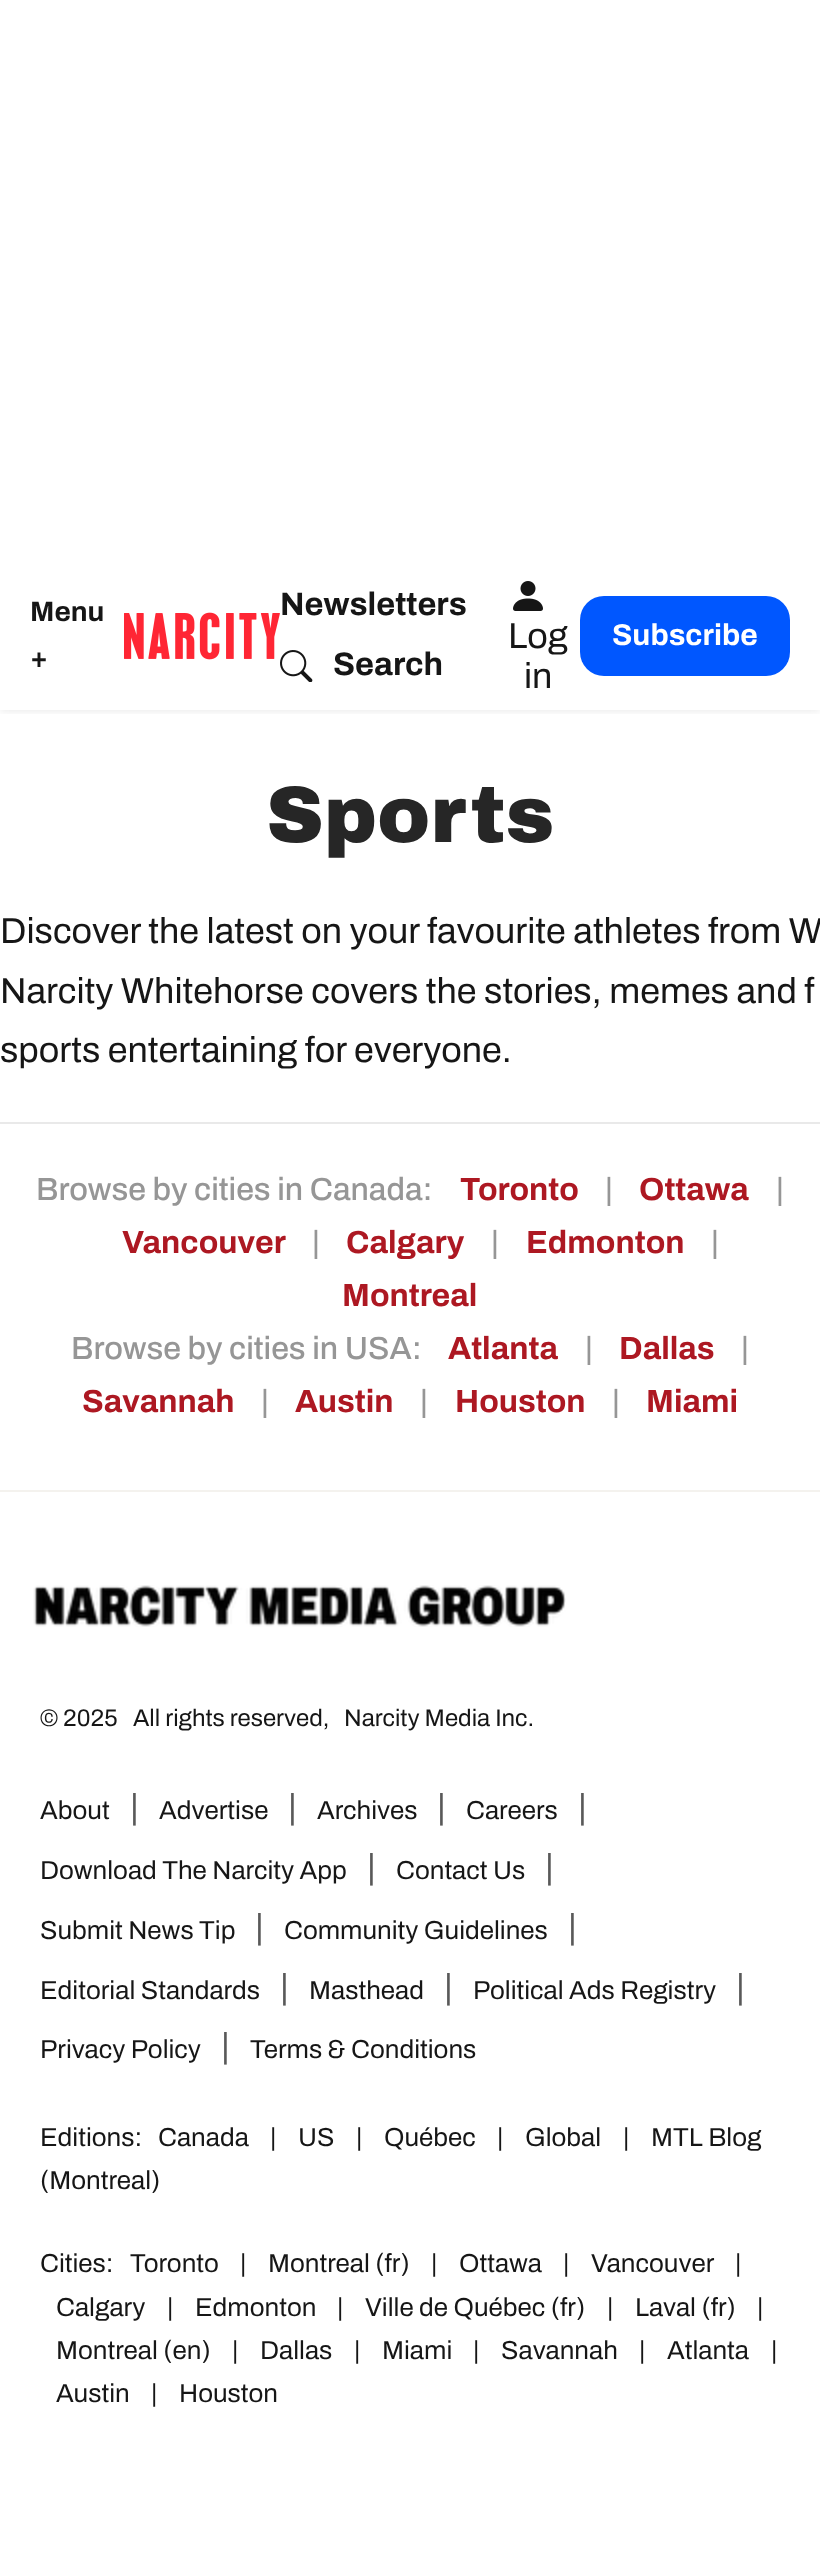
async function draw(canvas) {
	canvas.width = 820;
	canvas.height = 2555;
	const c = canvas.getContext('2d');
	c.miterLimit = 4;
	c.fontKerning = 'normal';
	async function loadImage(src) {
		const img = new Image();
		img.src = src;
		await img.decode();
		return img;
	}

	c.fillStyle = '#fff';
	c.fillRect(0, 0, 820, 2555);
	c.save();
	c.beginPath();
	c.rect(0, 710, 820, 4);
	c.clip();
	c.fillStyle = '#0000001a';
	c.filter = 'blur(5px)';
	c.beginPath();
	c.rect(0, 560, 820, 150);
	c.fill();
	c.filter = 'none';
	c.restore();
	c.fillRect(0, 554, 820, 6);
	c.font = 'bold 28px Archivo';
	c.fillStyle = '#161616';
	c.fillText('Menu', 30, 621);
	c.fillText('+', 30, 667);
	c.drawImage(await loadImage('img1.png'), 124, 612, 156, 48);
	c.font = 'bold 32.5px Archivo';
	c.fillText('Newsletters', 280, 615);
	c.drawImage(await loadImage('img2.png'), 280, 650, 33, 32);
	c.fillText('Search', 333, 675);
	c.drawImage(await loadImage('img3.png'), 513, 581, 30, 30);
	c.font = '36px Archivo';
	c.fillText('Log', 508, 648);
	c.fillText('in', 524, 688);
	c.fillStyle = '#0057ff';
	c.beginPath();
	c.roundRect(580, 596, 210, 80, 24);
	c.fill();
	c.font = 'bold 30px Archivo';
	c.fillStyle = '#fff';
	c.fillText('Subscribe', 612, 645);
	c.font = '900 80px Archivo Black';
	c.fillStyle = '#262626';
	c.fillText('Sports', 266, 842);
	c.fillStyle = '#e9e9e9';
	c.fillRect(0, 1122, 820, 2);
	c.font = '36px Archivo';
	c.fillStyle = '#161616';
	for (const [text, x, y] of [
		['Discover the latest on your favourite athletes from W', 0, 943],
		['Narcity Whitehorse covers the stories, memes and f', 0, 1003],
		['sports entertaining for everyone.', 0, 1062],
	]) {
		c.fillText(text, x, y);
	}
	c.font = '500 32px Archivo';
	c.fillStyle = '#969696';
	c.fillText('Browse by cities in Canada:', 36, 1200);
	c.font = 'bold 32px Archivo';
	c.fillStyle = '#ad1822';
	c.fillText('Toronto', 460, 1200);
	c.font = '500 32px Archivo';
	c.fillStyle = '#969696';
	c.fillText('|', 605, 1200);
	c.font = 'bold 32px Archivo';
	c.fillStyle = '#ad1822';
	c.fillText('Ottawa', 639, 1200);
	c.font = '500 32px Archivo';
	c.fillStyle = '#969696';
	c.fillText('|', 776, 1200);
	c.font = 'bold 32px Archivo';
	c.fillStyle = '#ad1822';
	c.fillText('Vancouver', 122, 1253);
	c.font = '500 32px Archivo';
	c.fillStyle = '#969696';
	c.fillText('|', 312, 1253);
	c.font = 'bold 32px Archivo';
	c.fillStyle = '#ad1822';
	c.fillText('Calgary', 346, 1253);
	c.font = '500 32px Archivo';
	c.fillStyle = '#969696';
	c.fillText('|', 491, 1253);
	c.font = 'bold 32px Archivo';
	c.fillStyle = '#ad1822';
	c.fillText('Edmonton', 526, 1253);
	c.font = '500 32px Archivo';
	c.fillStyle = '#969696';
	c.fillText('|', 711, 1253);
	c.font = 'bold 32px Archivo';
	c.fillStyle = '#ad1822';
	c.fillText('Montreal', 342, 1306);
	c.font = '500 32px Archivo';
	c.fillStyle = '#969696';
	c.fillText('Browse by cities in USA:', 71, 1359);
	c.font = 'bold 32px Archivo';
	c.fillStyle = '#ad1822';
	c.fillText('Atlanta', 448, 1359);
	c.font = '500 32px Archivo';
	c.fillStyle = '#969696';
	c.fillText('|', 585, 1359);
	c.font = 'bold 32px Archivo';
	c.fillStyle = '#ad1822';
	c.fillText('Dallas', 619, 1359);
	c.font = '500 32px Archivo';
	c.fillStyle = '#969696';
	c.fillText('|', 741, 1359);
	c.font = 'bold 32px Archivo';
	c.fillStyle = '#ad1822';
	c.fillText('Savannah', 82, 1412);
	c.font = '500 32px Archivo';
	c.fillStyle = '#969696';
	c.fillText('|', 261, 1412);
	c.font = 'bold 32px Archivo';
	c.fillStyle = '#ad1822';
	c.fillText('Austin', 295, 1412);
	c.font = '500 32px Archivo';
	c.fillStyle = '#969696';
	c.fillText('|', 420, 1412);
	c.font = 'bold 32px Archivo';
	c.fillStyle = '#ad1822';
	c.fillText('Houston', 455, 1412);
	c.font = '500 32px Archivo';
	c.fillStyle = '#969696';
	c.fillText('|', 612, 1412);
	c.font = 'bold 32px Archivo';
	c.fillStyle = '#ad1822';
	c.fillText('Miami', 646, 1412);
	c.fillStyle = '#f4f2ee';
	c.fillRect(0, 1490, 820, 2);
	c.drawImage(await loadImage('img4.png'), 33, 1585, 533, 42);
	c.font = '24px Archivo';
	c.fillStyle = '#161616';
	for (const [text, x, y] of [
		['© 2025', 40, 1726],
		['All rights reserved,', 133, 1726],
		['Narcity Media Inc.', 344, 1726],
	]) {
		c.fillText(text, x, y);
	}
	c.font = '26px Archivo';
	c.fillText('About', 40, 1819);
	c.font = '36px Archivo';
	c.fillStyle = '#595959';
	c.fillText('|', 130, 1819);
	c.font = '26px Archivo';
	c.fillStyle = '#161616';
	c.fillText('Advertise', 159, 1819);
	c.font = '36px Archivo';
	c.fillStyle = '#595959';
	c.fillText('|', 288, 1819);
	c.font = '26px Archivo';
	c.fillStyle = '#161616';
	c.fillText('Archives', 317, 1819);
	c.font = '36px Archivo';
	c.fillStyle = '#595959';
	c.fillText('|', 437, 1819);
	c.font = '26px Archivo';
	c.fillStyle = '#161616';
	c.fillText('Careers', 466, 1819);
	c.font = '36px Archivo';
	c.fillStyle = '#595959';
	c.fillText('|', 578, 1819);
	c.font = '26px Archivo';
	c.fillStyle = '#161616';
	c.fillText('Download The Narcity App', 40, 1879);
	c.font = '36px Archivo';
	c.fillStyle = '#595959';
	c.fillText('|', 367, 1879);
	c.font = '26px Archivo';
	c.fillStyle = '#161616';
	c.fillText('Contact Us', 396, 1879);
	c.font = '36px Archivo';
	c.fillStyle = '#595959';
	c.fillText('|', 545, 1879);
	c.font = '26px Archivo';
	c.fillStyle = '#161616';
	c.fillText('Submit News Tip', 40, 1939);
	c.font = '36px Archivo';
	c.fillStyle = '#595959';
	c.fillText('|', 255, 1939);
	c.font = '26px Archivo';
	c.fillStyle = '#161616';
	c.fillText('Community Guidelines', 284, 1939);
	c.font = '36px Archivo';
	c.fillStyle = '#595959';
	c.fillText('|', 568, 1939);
	c.font = '26px Archivo';
	c.fillStyle = '#161616';
	c.fillText('Editorial Standards', 40, 1999);
	c.font = '36px Archivo';
	c.fillStyle = '#595959';
	c.fillText('|', 280, 1999);
	c.font = '26px Archivo';
	c.fillStyle = '#161616';
	c.fillText('Masthead', 309, 1999);
	c.font = '36px Archivo';
	c.fillStyle = '#595959';
	c.fillText('|', 444, 1999);
	c.font = '26px Archivo';
	c.fillStyle = '#161616';
	c.fillText('Political Ads Registry', 473, 1999);
	c.font = '36px Archivo';
	c.fillStyle = '#595959';
	c.fillText('|', 736, 1999);
	c.font = '26px Archivo';
	c.fillStyle = '#161616';
	c.fillText('Privacy Policy', 40, 2058);
	c.font = '36px Archivo';
	c.fillStyle = '#595959';
	c.fillText('|', 221, 2058);
	c.font = '26px Archivo';
	c.fillStyle = '#161616';
	for (const [text, x, y] of [
		['Terms & Conditions', 250, 2058],
		['Editions:', 40, 2146],
		['Canada', 158, 2146],
		['|', 270, 2146],
		['US', 298, 2146],
		['|', 356, 2146],
		['Québec', 384, 2146],
		['|', 497, 2146],
		['Global', 525, 2146],
		['|', 623, 2146],
		['MTL Blog', 651, 2146],
		['(Montreal)', 40, 2189],
		['Cities:', 40, 2272],
		['Toronto', 130, 2272],
		['|', 240, 2272],
		['Montreal (fr)', 268, 2272],
		['|', 431, 2272],
		['Ottawa', 459, 2272],
		['|', 563, 2272],
		['Vancouver', 591, 2272],
		['|', 735, 2272],
		['Calgary', 56, 2316],
		['|', 167, 2316],
		['Edmonton', 195, 2316],
		['|', 337, 2316],
		['Ville de Québec (fr)', 365, 2316],
		['|', 607, 2316],
		['Laval (fr)', 635, 2316],
		['|', 757, 2316],
		['Montreal (en)', 56, 2359],
		['|', 232, 2359],
		['Dallas', 260, 2359],
		['|', 354, 2359],
		['Miami', 382, 2359],
		['|', 473, 2359],
		['Savannah', 501, 2359],
		['|', 639, 2359],
		['Atlanta', 667, 2359],
		['|', 771, 2359],
		['Austin', 56, 2402],
		['|', 151, 2402],
		['Houston', 179, 2402],
	]) {
		c.fillText(text, x, y);
	}
}

draw(document.querySelector('canvas'));
